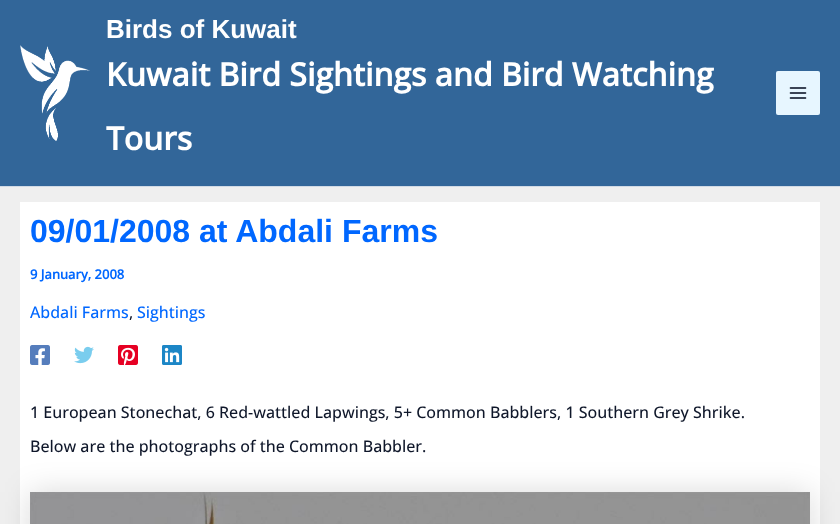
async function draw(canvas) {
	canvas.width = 840;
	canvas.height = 524;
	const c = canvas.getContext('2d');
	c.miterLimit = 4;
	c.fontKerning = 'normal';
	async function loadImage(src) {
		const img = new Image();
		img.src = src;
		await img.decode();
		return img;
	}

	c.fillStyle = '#efefef';
	c.fillRect(0, 0, 840, 524);
	c.fillStyle = '#326699';
	c.fillRect(0, 0, 840, 186);
	c.fillStyle = '#d1dae5';
	c.fillRect(0, 186, 840, 1);
	c.drawImage(await loadImage('img1.png'), 20, 45, 70, 96);
	c.font = 'bold 26px Liberation Sans';
	c.fillStyle = '#fff';
	c.fillText('Birds of Kuwait', 106, 38);
	c.font = 'bold 32px Open Sans';
	c.fillText('Kuwait Bird Sightings and Bird Watching', 106, 86);
	c.fillText('Tours', 106, 150);
	c.fillStyle = '#e7f6ff';
	c.beginPath();
	c.roundRect(776, 71, 44, 44, 2);
	c.fill();
	c.drawImage(await loadImage('img2.png'), 789, 87, 18, 12);
	c.fillStyle = '#fff';
	c.fillRect(20, 202, 800, 322);
	c.font = 'bold 32px Liberation Sans';
	c.fillStyle = '#0067ff';
	c.fillText('09/01/2008 at Abdali Farms', 30, 242);
	c.font = 'bold 13px Open Sans';
	c.fillText('9 January, 2008', 30, 279);
	c.font = '500 16px Open Sans';
	c.fillText('Abdali Farms', 30, 318);
	c.fillStyle = '#0f172a';
	c.fillText(',', 129, 318);
	c.fillStyle = '#0067ff';
	c.fillText('Sightings', 137, 318);
	c.drawImage(await loadImage('img3.png'), 30, 345, 20, 20);
	c.drawImage(await loadImage('img4.png'), 74, 346, 20, 18);
	c.drawImage(await loadImage('img5.png'), 118, 345, 20, 20);
	c.drawImage(await loadImage('img6.png'), 162, 345, 20, 20);
	c.fillStyle = '#0f172a';
	c.fillText('1 European Stonechat, 6 Red-wattled Lapwings, 5+ Common Babblers, 1 Southern Grey Shrike.', 30, 418);
	c.fillStyle = '#00000026';
	c.filter = 'blur(15px)';
	c.beginPath();
	c.rect(30, 492, 780, 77);
	c.fill();
	c.filter = 'none';
	c.fillStyle = '#0f172a';
	c.fillText('Below are the photographs of the Common Babbler.', 30, 452);
	c.drawImage(await loadImage('img7.png'), 30, 492, 780, 32);
}

draw(document.querySelector('canvas'));
